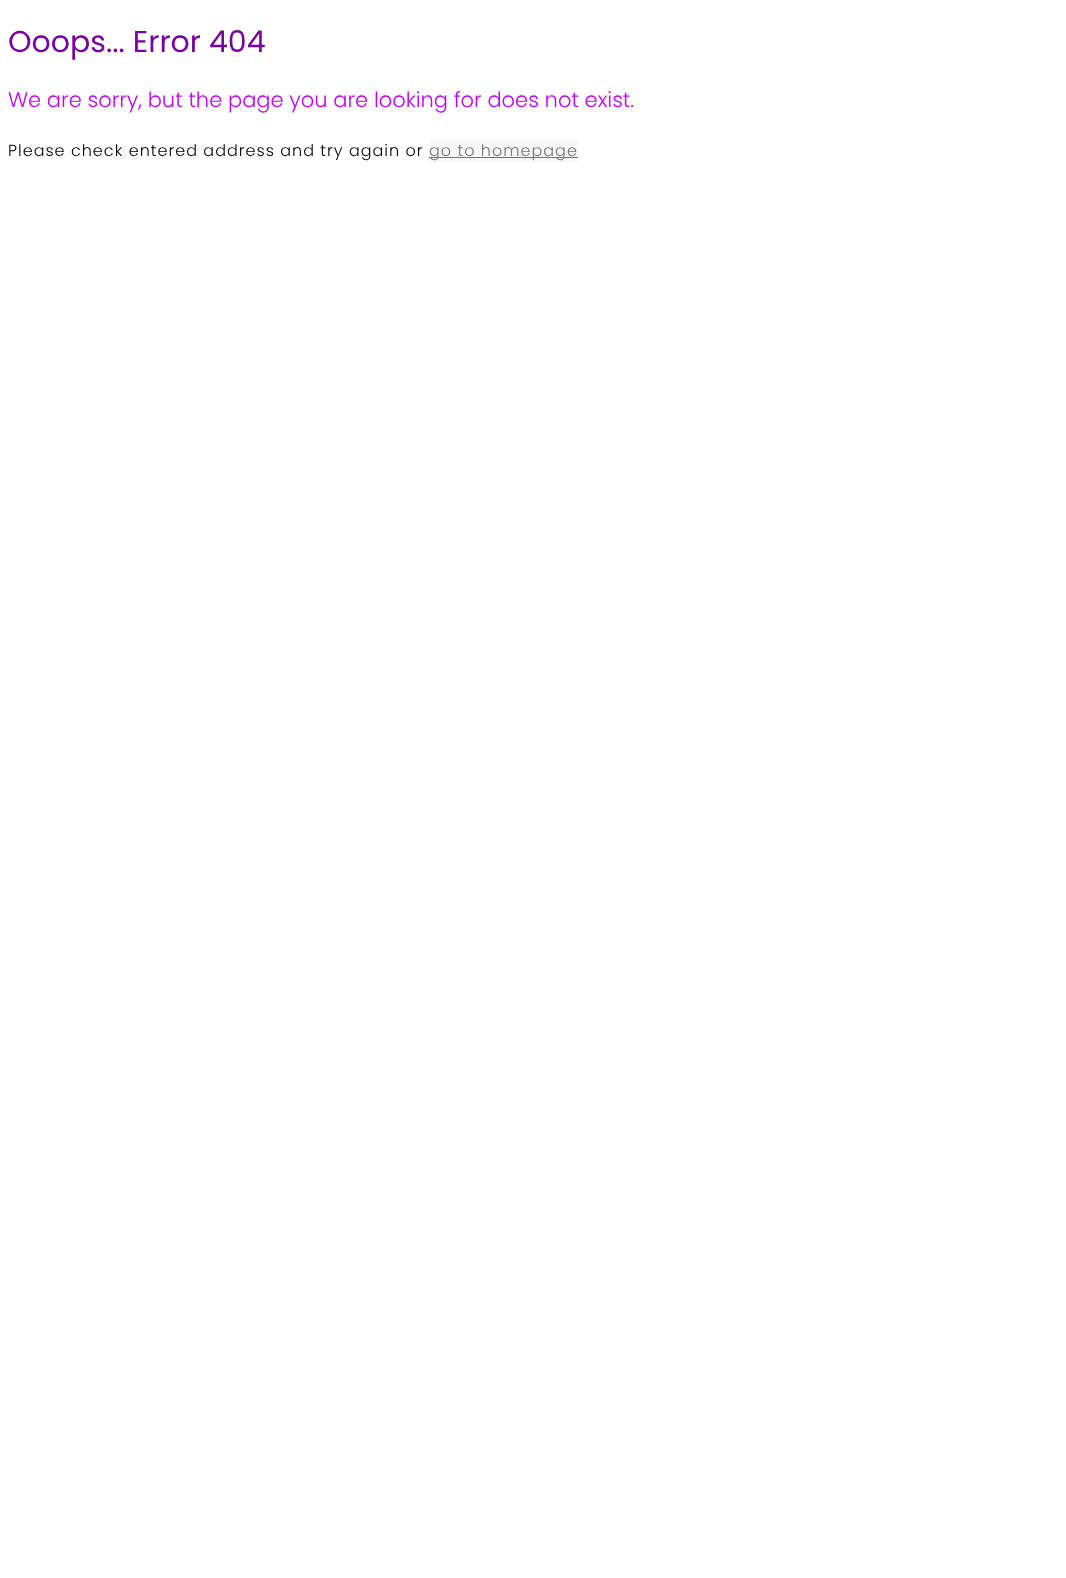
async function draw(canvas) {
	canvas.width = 1066;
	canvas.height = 1578;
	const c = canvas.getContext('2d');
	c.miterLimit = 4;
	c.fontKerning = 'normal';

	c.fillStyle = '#fff';
	c.fillRect(0, 0, 1066, 1578);
	c.font = '30px Poppins';
	c.fillStyle = '#7900a0';
	c.fillText('Ooops... Error 404', 8, 52);
	c.font = '300 21px Poppins';
	c.fillStyle = '#c000ff';
	c.fillText('We are sorry, but the page you are looking for does not exist.', 8, 107);
	c.letterSpacing = '1px';
	c.font = '300 16px Poppins';
	c.fillStyle = '#000';
	c.fillText('Please check entered address and try again or', 8, 156);
	c.fillStyle = '#f7f7f7';
	c.fillRect(429, 139, 149, 23);
	c.fillStyle = '#747474';
	c.fillRect(429, 157, 149, 1);
	c.fillText('go to homepage', 429, 156);
}

draw(document.querySelector('canvas'));
